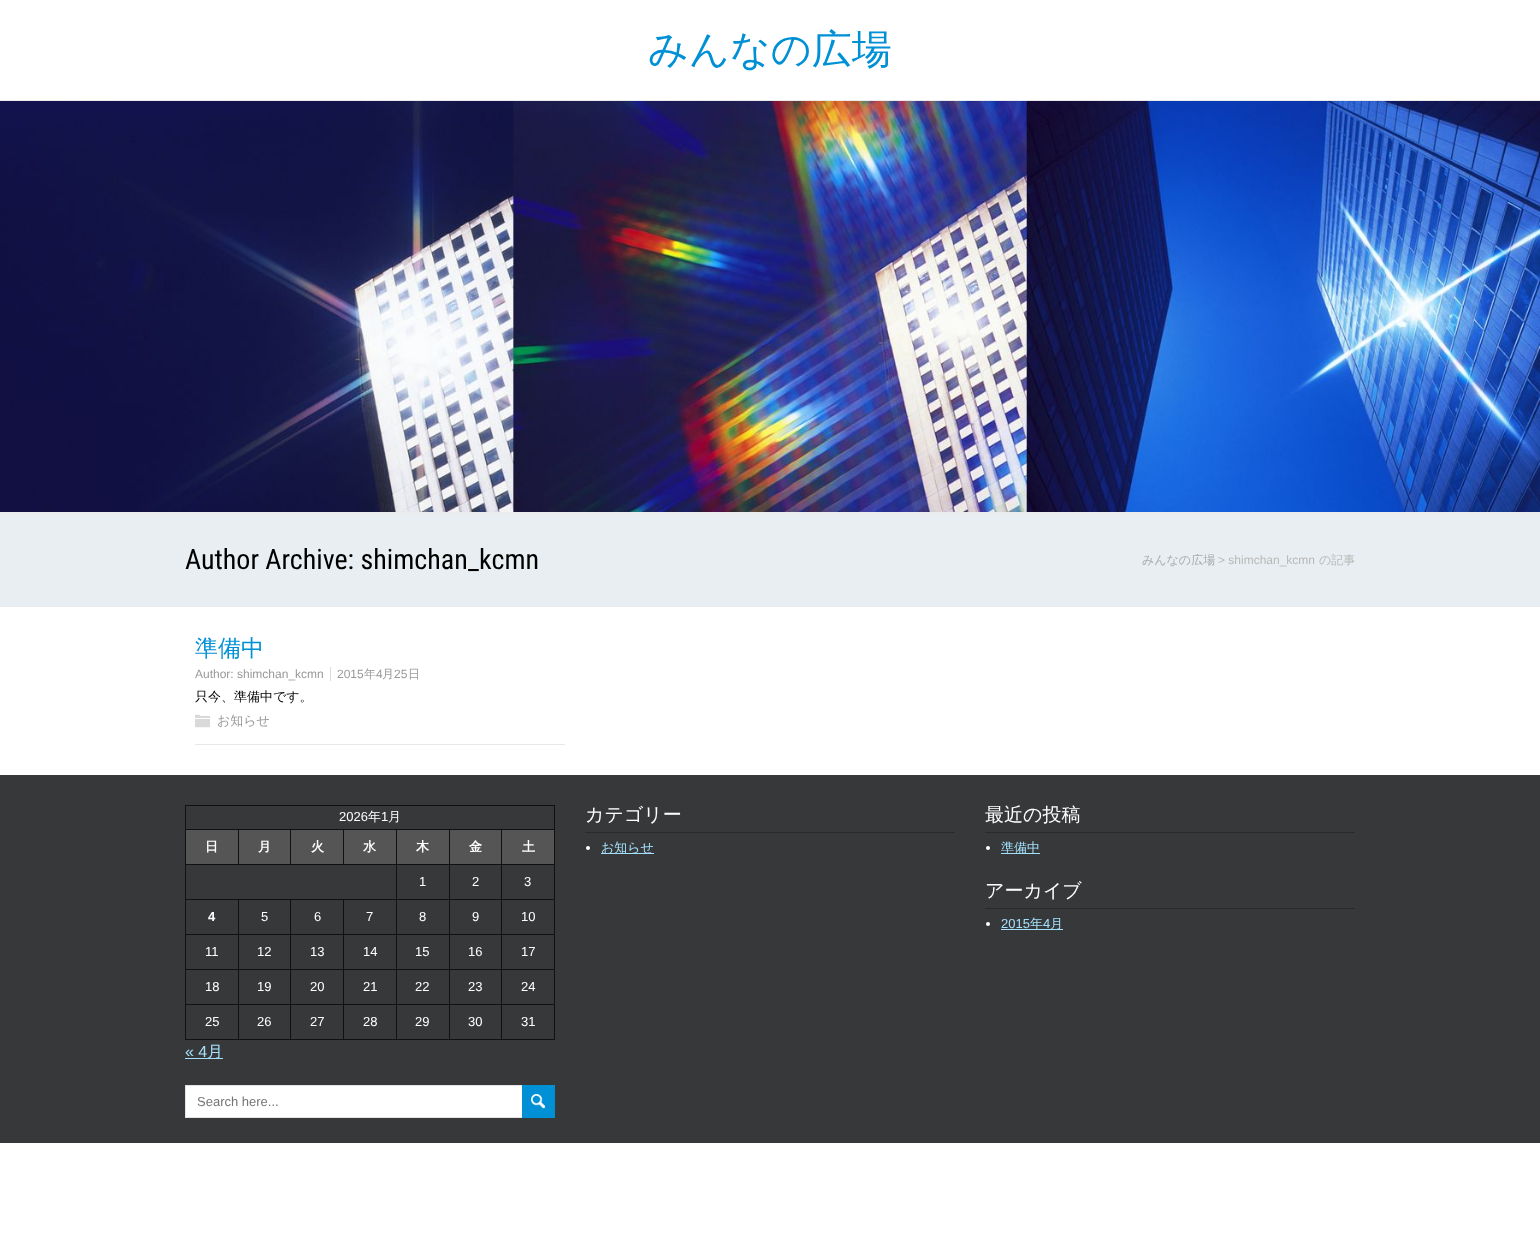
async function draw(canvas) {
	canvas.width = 1540;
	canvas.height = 1259;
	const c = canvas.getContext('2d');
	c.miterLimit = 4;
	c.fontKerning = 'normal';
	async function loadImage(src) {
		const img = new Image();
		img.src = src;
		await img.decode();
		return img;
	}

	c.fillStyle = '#fff';
	c.fillRect(0, 0, 1540, 1259);
	c.fillStyle = '#ebebeb';
	c.fillRect(0, 100, 1540, 1);
	c.font = '500 40px WenQuanYi Zen Hei';
	c.fillStyle = '#0090d5';
	c.fillText('みんなの広場', 648, 63);
	c.fillStyle = '#ebebeb';
	c.fillRect(0, 512, 1540, 1);
	c.drawImage(await loadImage('img1.png'), 0, 101, 1540, 411);
	c.fillStyle = '#e8eef1';
	c.fillRect(0, 513, 1540, 93);
	c.fillStyle = '#ebebeb';
	c.fillRect(0, 606, 1540, 1);
	c.font = '28px Roboto Condensed';
	c.fillStyle = '#000';
	c.fillText('Author Archive: shimchan_kcmn', 185, 569);
	c.font = '500 12px WenQuanYi Zen Hei';
	c.fillStyle = '#aaa';
	c.fillText('みんなの広場', 1142, 564);
	c.font = '12px Liberation Sans';
	c.fillStyle = '#b8b8b8';
	c.fillText('> shimchan_kcmn', 1218, 564);
	c.font = '500 12px WenQuanYi Zen Hei';
	c.fillText('の記事', 1319, 564);
	c.fillStyle = '#e8e8e8';
	c.fillRect(195, 744, 370, 1);
	c.font = '500 23px WenQuanYi Zen Hei';
	c.fillStyle = '#0090d5';
	c.fillText('準備中', 195, 656);
	c.font = '12px Liberation Sans';
	c.fillStyle = '#999';
	c.fillText('Author: shimchan_kcmn', 195, 678);
	c.fillText('2015', 337, 678);
	c.fillStyle = '#dbdbdb';
	c.fillRect(330, 667, 1, 14);
	c.font = '500 12px WenQuanYi Zen Hei';
	c.fillStyle = '#999';
	c.fillText('年', 364, 678);
	c.font = '12px Liberation Sans';
	c.fillText('4', 376, 678);
	c.font = '500 12px WenQuanYi Zen Hei';
	c.fillText('月', 382, 678);
	c.font = '12px Liberation Sans';
	c.fillText('25', 394, 678);
	c.font = '500 12px WenQuanYi Zen Hei';
	c.fillText('日', 408, 678);
	c.font = '500 13px WenQuanYi Zen Hei';
	c.fillStyle = '#000';
	c.fillText('只今、準備中です。', 195, 701);
	c.drawImage(await loadImage('img2.png'), 195, 714, 15, 14);
	c.fillStyle = '#999';
	c.fillText('お知らせ', 217, 725);
	for (const [x, y, w, h, color] of [
		[0, 775, 1540, 368, '#363839'],
		[185, 805, 370, 1, '#111'],
		[554, 805, 1, 235, '#111'],
		[185, 1039, 370, 1, '#111'],
		[185, 805, 1, 235, '#111'],
	]) {
		c.fillStyle = color;
		c.fillRect(x, y, w, h);
	}
	c.font = '13px Liberation Sans';
	c.fillStyle = '#fff';
	c.fillText('2026', 339, 821);
	c.font = '500 13px WenQuanYi Zen Hei';
	c.fillText('年', 368, 821);
	c.font = '13px Liberation Sans';
	c.fillText('1', 381, 821);
	c.font = '500 13px WenQuanYi Zen Hei';
	c.fillText('月', 388, 821);
	for (const [x, y, w, h, color] of [
		[186, 830, 52, 34, '#555'],
		[501, 829, 54, 1, '#111'],
		[501, 864, 54, 1, '#111'],
		[501, 899, 54, 1, '#111'],
		[501, 934, 54, 1, '#111'],
		[501, 969, 54, 1, '#111'],
		[501, 1004, 54, 1, '#111'],
		[501, 1004, 1, 36, '#111'],
		[449, 1004, 53, 1, '#111'],
		[501, 969, 1, 36, '#111'],
		[449, 969, 53, 1, '#111'],
		[501, 934, 1, 36, '#111'],
		[449, 934, 53, 1, '#111'],
		[501, 899, 1, 36, '#111'],
		[449, 899, 53, 1, '#111'],
		[501, 864, 1, 36, '#111'],
		[449, 864, 53, 1, '#111'],
		[501, 829, 1, 36, '#111'],
		[449, 829, 53, 1, '#111'],
		[449, 1004, 1, 36, '#111'],
		[396, 1004, 54, 1, '#111'],
		[449, 969, 1, 36, '#111'],
		[396, 969, 54, 1, '#111'],
		[449, 934, 1, 36, '#111'],
		[396, 934, 54, 1, '#111'],
		[449, 899, 1, 36, '#111'],
		[396, 899, 54, 1, '#111'],
		[449, 864, 1, 36, '#111'],
		[396, 864, 54, 1, '#111'],
		[449, 829, 1, 36, '#111'],
		[396, 829, 54, 1, '#111'],
		[396, 1004, 1, 36, '#111'],
		[343, 1004, 54, 1, '#111'],
		[396, 969, 1, 36, '#111'],
		[343, 969, 54, 1, '#111'],
		[396, 934, 1, 36, '#111'],
		[343, 934, 54, 1, '#111'],
		[396, 899, 1, 36, '#111'],
		[343, 899, 54, 1, '#111'],
		[396, 864, 1, 36, '#111'],
		[185, 864, 212, 1, '#111'],
		[396, 829, 1, 36, '#111'],
		[343, 829, 54, 1, '#111'],
		[343, 829, 1, 36, '#111'],
		[290, 829, 54, 1, '#111'],
		[290, 829, 1, 36, '#111'],
		[238, 829, 53, 1, '#111'],
		[238, 829, 1, 36, '#111'],
		[185, 829, 54, 1, '#111'],
	]) {
		c.fillStyle = color;
		c.fillRect(x, y, w, h);
	}
	c.font = 'bold 13px WenQuanYi Zen Hei';
	c.fillStyle = '#fff';
	c.fillText('日', 205, 851);
	c.fillStyle = '#555';
	c.fillRect(239, 830, 51, 34);
	c.fillStyle = '#fff';
	c.fillText('月', 258, 851);
	c.fillStyle = '#555';
	c.fillRect(291, 830, 52, 34);
	c.fillStyle = '#fff';
	c.fillText('火', 311, 851);
	c.fillStyle = '#555';
	c.fillRect(344, 830, 52, 34);
	c.fillStyle = '#fff';
	c.fillText('水', 363, 851);
	c.fillStyle = '#555';
	c.fillRect(397, 830, 52, 34);
	c.fillStyle = '#fff';
	c.fillText('木', 416, 851);
	c.fillStyle = '#555';
	c.fillRect(450, 830, 51, 34);
	c.fillStyle = '#fff';
	c.fillText('金', 469, 851);
	c.fillStyle = '#555';
	c.fillRect(502, 830, 52, 34);
	c.fillStyle = '#fff';
	c.fillText('土', 522, 851);
	c.font = '13px Liberation Sans';
	for (const [text, x, y] of [
		['1', 419, 886],
		['2', 472, 886],
		['3', 524, 886],
	]) {
		c.fillText(text, x, y);
	}
	for (const [x, y, w, h, color] of [
		[343, 1004, 1, 36, '#111'],
		[290, 1004, 54, 1, '#111'],
		[343, 969, 1, 36, '#111'],
		[290, 969, 54, 1, '#111'],
		[343, 934, 1, 36, '#111'],
		[290, 934, 54, 1, '#111'],
		[343, 899, 1, 36, '#111'],
		[290, 899, 54, 1, '#111'],
		[290, 1004, 1, 36, '#111'],
		[238, 1004, 53, 1, '#111'],
		[290, 969, 1, 36, '#111'],
		[238, 969, 53, 1, '#111'],
		[290, 934, 1, 36, '#111'],
		[238, 934, 53, 1, '#111'],
		[290, 899, 1, 36, '#111'],
		[238, 899, 53, 1, '#111'],
		[238, 1004, 1, 36, '#111'],
		[185, 1004, 54, 1, '#111'],
		[238, 969, 1, 36, '#111'],
		[185, 969, 54, 1, '#111'],
		[238, 934, 1, 36, '#111'],
		[185, 934, 54, 1, '#111'],
		[238, 899, 1, 36, '#111'],
		[185, 899, 54, 1, '#111'],
	]) {
		c.fillStyle = color;
		c.fillRect(x, y, w, h);
	}
	c.font = 'bold 13px Liberation Sans';
	c.fillStyle = '#fff';
	c.fillText('4', 208, 921);
	c.font = '13px Liberation Sans';
	for (const [text, x, y] of [
		['5', 261, 921],
		['6', 314, 921],
		['7', 366, 921],
		['8', 419, 921],
		['9', 472, 921],
		['10', 521, 921],
		['11', 205, 956],
		['12', 257, 956],
		['13', 310, 956],
		['14', 363, 956],
		['15', 415, 956],
		['16', 468, 956],
		['17', 521, 956],
		['18', 205, 991],
		['19', 257, 991],
		['20', 310, 991],
		['21', 363, 991],
		['22', 415, 991],
		['23', 468, 991],
		['24', 521, 991],
		['25', 205, 1026],
		['26', 257, 1026],
		['27', 310, 1026],
		['28', 363, 1026],
		['29', 415, 1026],
		['30', 468, 1026],
		['31', 521, 1026],
	]) {
		c.fillText(text, x, y);
	}
	c.font = '16px Liberation Sans';
	c.fillStyle = '#a4e0fd';
	c.fillText('« 4', 185, 1057);
	c.fillRect(185, 1058, 38, 1);
	c.font = '500 16px WenQuanYi Zen Hei';
	c.fillText('月', 207, 1057);
	c.fillStyle = '#fff';
	c.fillRect(186, 1086, 336, 31);
	c.strokeStyle = '#e3e3e3';
	c.strokeRect(185.5, 1085.5, 367, 32);
	c.font = '13px Liberation Sans';
	c.fillStyle = '#757575';
	c.fillText('Search here...', 197, 1106);
	c.fillStyle = '#0090d5';
	c.fillRect(522, 1085, 33, 33);
	c.drawImage(await loadImage('img3.png'), 531, 1094, 15, 15);
	c.fillStyle = '#282a2b';
	c.fillRect(585, 832, 370, 1);
	c.font = '500 19px WenQuanYi Zen Hei';
	c.fillStyle = '#fff';
	c.fillText('カテゴリー', 585, 821);
	c.beginPath();
	c.arc(588, 848, 2, 0, 2 * Math.PI);
	c.fill();
	c.fillStyle = '#a4e0fd';
	c.fillRect(601, 853, 53, 1);
	c.font = '500 13px WenQuanYi Zen Hei';
	c.fillText('お知らせ', 601, 852);
	c.fillStyle = '#282a2b';
	c.fillRect(985, 832, 370, 1);
	c.font = '500 19px WenQuanYi Zen Hei';
	c.fillStyle = '#fff';
	c.fillText('最近の投稿', 985, 821);
	c.beginPath();
	c.arc(988, 848, 2, 0, 2 * Math.PI);
	c.fill();
	c.fillStyle = '#a4e0fd';
	c.fillRect(1001, 853, 39, 1);
	c.font = '500 13px WenQuanYi Zen Hei';
	c.fillText('準備中', 1001, 852);
	c.fillStyle = '#282a2b';
	c.fillRect(985, 908, 370, 1);
	c.font = '500 19px WenQuanYi Zen Hei';
	c.fillStyle = '#fff';
	c.fillText('アーカイブ', 985, 897);
	c.beginPath();
	c.arc(988, 924, 2, 0, 2 * Math.PI);
	c.fill();
	c.font = '13px Liberation Sans';
	c.fillStyle = '#a4e0fd';
	c.fillText('2015', 1001, 928);
	c.fillRect(1001, 929, 62, 1);
	c.font = '500 13px WenQuanYi Zen Hei';
	c.fillText('年', 1030, 928);
	c.font = '13px Liberation Sans';
	c.fillText('4', 1043, 928);
	c.font = '500 13px WenQuanYi Zen Hei';
	c.fillText('月', 1050, 928);
}

draw(document.querySelector('canvas'));
